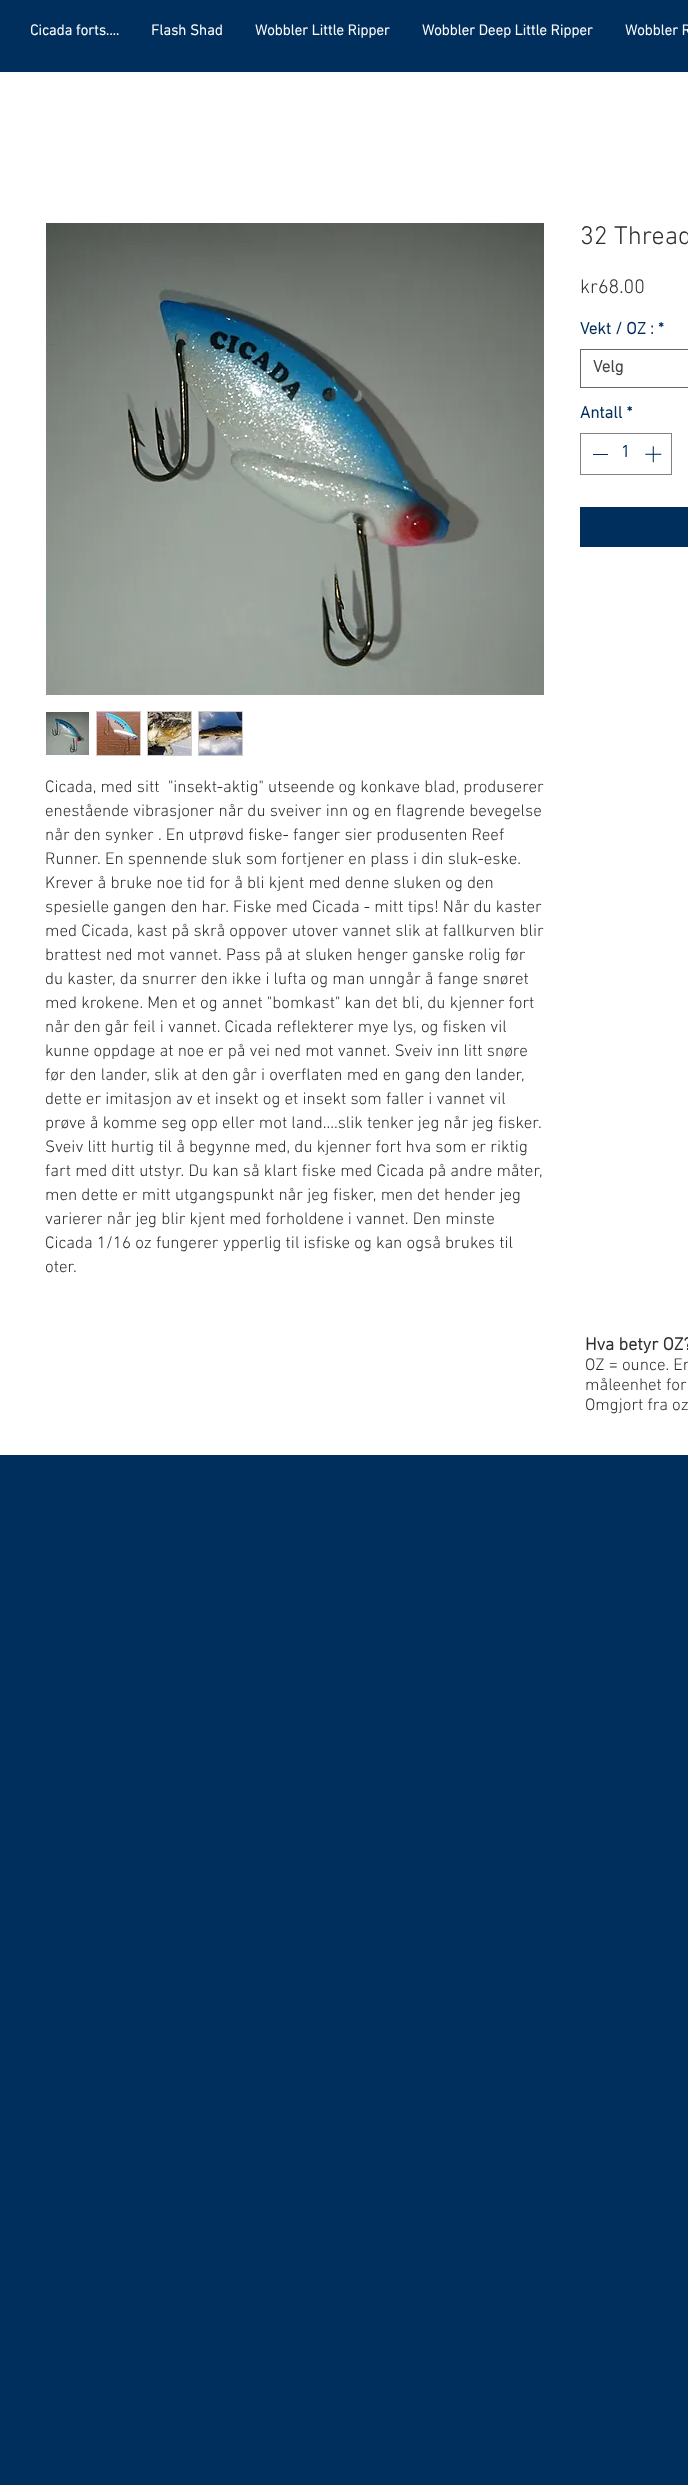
async function draw(canvas) {
	canvas.width = 688;
	canvas.height = 2485;
	const c = canvas.getContext('2d');
	c.miterLimit = 4;
	c.fontKerning = 'normal';
	async function loadImage(src) {
		const img = new Image();
		img.src = src;
		await img.decode();
		return img;
	}

	c.fillStyle = '#002e5d';
	c.fillRect(0, 0, 688, 2485);
	c.font = 'bold 15px "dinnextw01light"';
	c.fillStyle = '#fff';
	for (const [text, x, y] of [
		['Cicada forts....', 30, 35],
		['Flash Shad', 151, 35],
		['Wobbler Little Ripper', 255, 35],
		['Wobbler Deep Little Ripper', 422, 35],
		['Wobbler R', 625, 35],
	]) {
		c.fillText(text, x, y);
	}
	c.fillRect(0, 72, 688, 1383);
	c.font = '300 26px "dinnextw01light"';
	c.fillStyle = '#2f2e2e';
	c.fillText('32 Thread', 580, 244);
	c.font = '300 20px "dinnextw01light"';
	c.fillText('kr68.00', 580, 293);
	c.font = 'bold 17px "dinnextw01light"';
	c.fillStyle = '#002e5d';
	c.fillText('Vekt / OZ : *', 580, 334);
	c.strokeStyle = '#666';
	c.strokeRect(580.5, 349.5, 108, 38);
	c.fillStyle = '#444';
	c.fillText('Velg', 593, 372);
	c.fillStyle = '#002e5d';
	c.fillText('Antall *', 580, 418);
	c.strokeStyle = '#828282';
	c.strokeRect(580.5, 433.5, 91, 41);
	c.fillRect(593, 454, 15, 1);
	c.fillText('1', 621, 457);
	c.drawImage(await loadImage('img1.png'), 645, 446, 17, 17);
	c.fillRect(580, 507, 108, 40);
	c.drawImage(await loadImage('img2.png'), 46, 223, 498, 472);
	c.drawImage(await loadImage('img3.png'), 46, 712, 43, 43);
	c.strokeStyle = '#d1cac9';
	c.strokeRect(96.5, 711.5, 44, 44);
	c.drawImage(await loadImage('img4.png'), 97, 712, 43, 43);
	c.strokeRect(147.5, 711.5, 44, 44);
	c.drawImage(await loadImage('img5.png'), 148, 712, 43, 43);
	c.strokeRect(198.5, 711.5, 44, 44);
	c.drawImage(await loadImage('img6.png'), 199, 712, 43, 43);
	c.font = '300 17px "dinnextw01light"';
	c.fillStyle = '#2f2e2e';
	for (const [text, x, y] of [
		['Cicada, med sitt  "insekt-aktig" utseende og konkave blad, produserer', 45, 792],
		['enestående vibrasjoner når du sveiver inn og en flagrende bevegelse', 45, 816],
		['når den synker . En utprøvd fiske- fanger sier produsenten Reef', 45, 840],
		['Runner. En spennende sluk som fortjener en plass i din sluk-eske.', 45, 864],
		['Krever å bruke noe tid for å bli kjent med denne sluken og den', 45, 888],
		['spesielle gangen den har. Fiske med Cicada - mitt tips! Når du kaster', 45, 912],
		['med Cicada, kast på skrå oppover utover vannet slik at fallkurven blir', 45, 936],
		['brattest ned mot vannet. Pass på at sluken henger ganske rolig før', 45, 960],
		['du kaster, da snurrer den ikke i lufta og man unngår å fange snøret', 45, 984],
		['med krokene. Men et og annet "bomkast" kan det bli, du kjenner fort', 45, 1008],
		['når den går feil i vannet. Cicada reflekterer mye lys, og fisken vil', 45, 1032],
		['kunne oppdage at noe er på vei ned mot vannet. Sveiv inn litt snøre', 45, 1056],
		['før den lander, slik at den går i overflaten med en gang den lander,', 45, 1080],
		['dette er imitasjon av et insekt og et insekt som faller i vannet vil', 45, 1104],
		['prøve å komme seg opp eller mot land....slik tenker jeg når jeg fisker.', 45, 1128],
		['Sveiv litt hurtig til å begynne med, du kjenner fort hva som er riktig', 45, 1152],
		['fart med ditt utstyr. Du kan så klart fiske med Cicada på andre måter,', 45, 1176],
		['men dette er mitt utgangspunkt når jeg fisker, men det hender jeg', 45, 1200],
		['varierer når jeg blir kjent med forholdene i vannet. Den minste', 45, 1224],
		['Cicada 1/16 oz fungerer ypperlig til isfiske og kan også brukes til', 45, 1248],
		['oter.', 45, 1272],
	]) {
		c.fillText(text, x, y);
	}
	c.font = 'bold 18px "dinnextw01light"';
	c.fillText('Hva betyr OZ?', 585, 1350);
	c.font = '300 17px "dinnextw01light"';
	for (const [text, x, y] of [
		['OZ = ounce. En', 585, 1370],
		['måleenhet for', 585, 1390],
		['Omgjort fra oz', 585, 1410],
	]) {
		c.fillText(text, x, y);
	}
}

draw(document.querySelector('canvas'));
